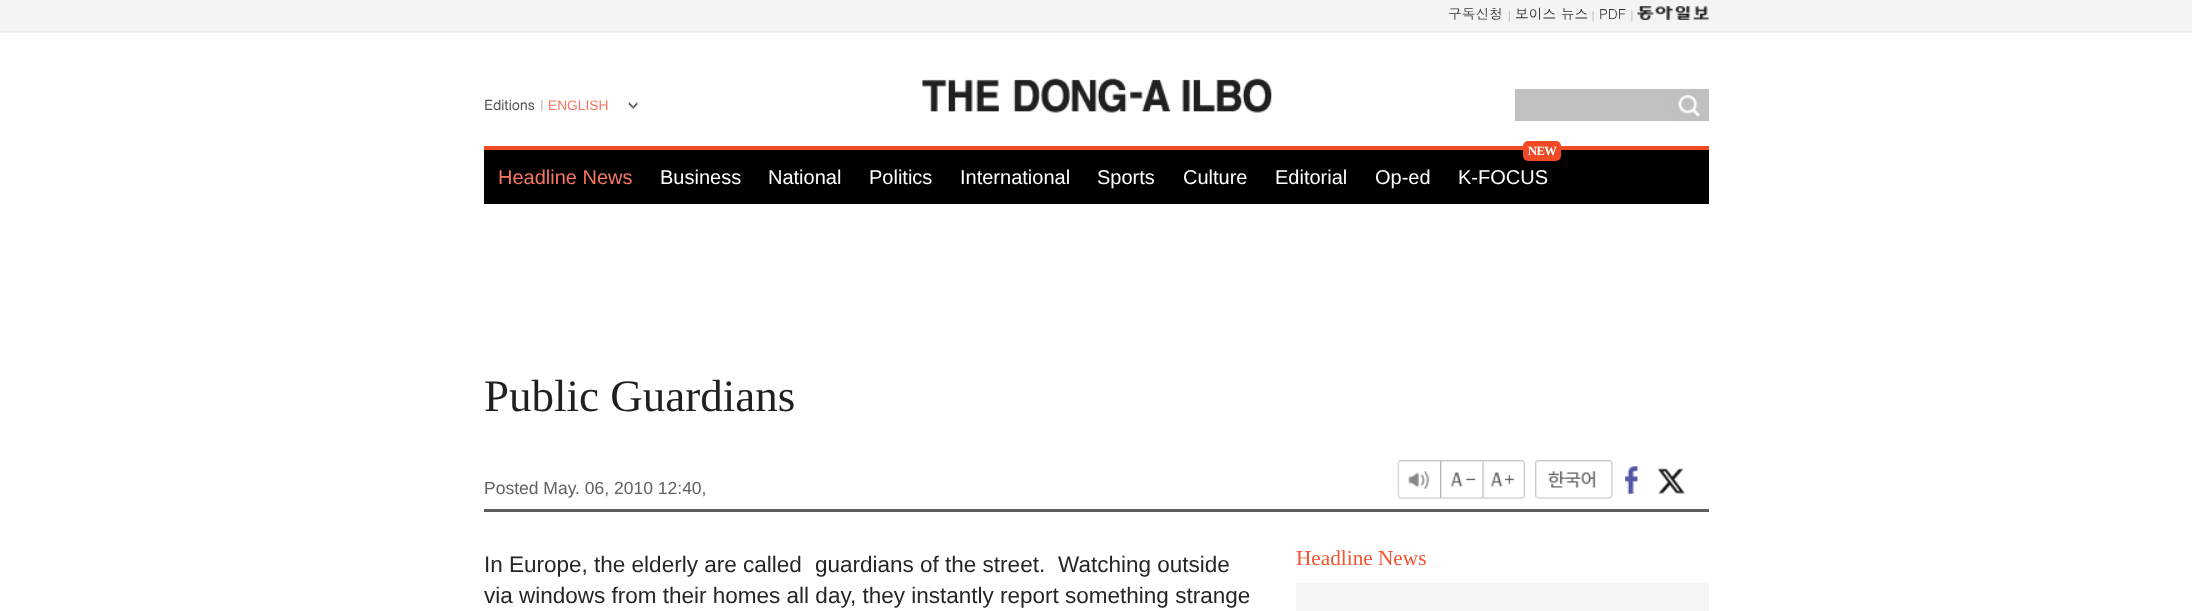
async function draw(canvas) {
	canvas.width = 2192;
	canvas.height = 611;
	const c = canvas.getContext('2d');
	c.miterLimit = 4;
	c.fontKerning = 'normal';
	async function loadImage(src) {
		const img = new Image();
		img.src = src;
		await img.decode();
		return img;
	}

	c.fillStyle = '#fff';
	c.fillRect(0, 0, 2192, 611);
	c.fillStyle = '#f4f4f4';
	c.fillRect(0, 0, 2192, 33);
	c.fillStyle = '#eee';
	c.fillRect(0, 31, 2192, 1);
	c.drawImage(await loadImage('img1.png'), 1508, 11, 2, 11);
	c.font = '13.75px Dotum';
	c.fillStyle = '#333';
	c.fillText('구독신청', 1448, 19);
	c.drawImage(await loadImage('img2.png'), 1592, 11, 2, 11);
	c.fillText('보이스 뉴스', 1515, 19);
	c.drawImage(await loadImage('img3.png'), 1631, 11, 2, 11);
	c.fillText('PDF', 1599, 19);
	c.drawImage(await loadImage('img4.png'), 1637, 6, 72, 14);
	c.drawImage(await loadImage('img5.png'), 541, 100, 2, 12);
	c.font = 'bold 13.75px Dotum';
	c.fillStyle = '#575757';
	c.fillText('Editions', 484, 110);
	c.drawImage(await loadImage('img6.png'), 628, 102, 10, 7);
	c.font = '13.75px Liberation Sans';
	c.fillStyle = '#f77660';
	c.fillText('ENGLISH', 548, 110);
	c.drawImage(await loadImage('img7.png'), 922, 78, 350, 35);
	c.fillStyle = '#c0c0c0';
	c.fillRect(1515, 89, 194, 32);
	c.drawImage(await loadImage('img8.png'), 1669, 88, 39, 34);
	c.fillStyle = '#000';
	c.fillRect(484, 150, 1225, 54);
	c.fillStyle = '#ef4a24';
	c.fillRect(484, 146, 1225, 4);
	c.font = '20px Liberation Sans';
	c.fillStyle = '#f77660';
	c.fillText('Headline News', 498, 184);
	c.fillStyle = '#fff';
	for (const [text, x, y] of [
		['Business', 660, 184],
		['National', 768, 184],
		['Politics', 869, 184],
		['International', 960, 184],
		['Sports', 1097, 184],
		['Culture', 1183, 184],
		['Editorial', 1275, 184],
		['Op-ed', 1375, 184],
	]) {
		c.fillText(text, x, y);
	}
	c.fillStyle = '#ef4a24';
	c.beginPath();
	c.roundRect(1523, 141, 38, 20, 5);
	c.fill();
	c.letterSpacing = '-0.5px';
	c.font = 'bold 12.5px Liberation Serif';
	c.fillStyle = '#fff';
	c.fillText('NEW', 1528, 155);
	c.letterSpacing = '0px';
	c.font = '20px Liberation Sans';
	c.fillText('K-FOCUS', 1458, 184);
	c.fillStyle = '#5e5d5d';
	c.fillRect(484, 509, 1225, 3);
	c.font = '45px Liberation Serif';
	c.fillStyle = '#231f20';
	c.fillText('Public Guardians', 484, 411);
	c.font = '17.5px Liberation Sans';
	c.fillStyle = '#606060';
	c.fillText('Posted May. 06, 2010 12:40,', 484, 494);
	c.drawImage(await loadImage('img9.png'), 1397, 460, 43, 39);
	c.drawImage(await loadImage('img10.png'), 1440, 460, 44, 39);
	c.drawImage(await loadImage('img11.png'), 1483, 460, 42, 39);
	c.drawImage(await loadImage('img12.png'), 1535, 460, 78, 39);
	c.drawImage(await loadImage('img13.png'), 1625, 466, 13, 28);
	c.drawImage(await loadImage('img14.png'), 1657, 468, 28, 26);
	c.font = '22.5px Liberation Sans';
	c.fillStyle = '#252525';
	for (const [text, x, y] of [
		['In Europe, the elderly are called', 484, 572],
		['guardians of the street.', 815, 572],
		['Watching outside', 1058, 572],
		['via windows from their homes all day, they instantly report something strange', 484, 603],
	]) {
		c.fillText(text, x, y);
	}
	c.font = '21.25px Liberation Serif';
	c.fillStyle = '#f25430';
	c.fillText('Headline News', 1296, 565);
	c.fillStyle = '#f5f5f5';
	c.fillRect(1296, 583, 413, 28);
}

draw(document.querySelector('canvas'));
